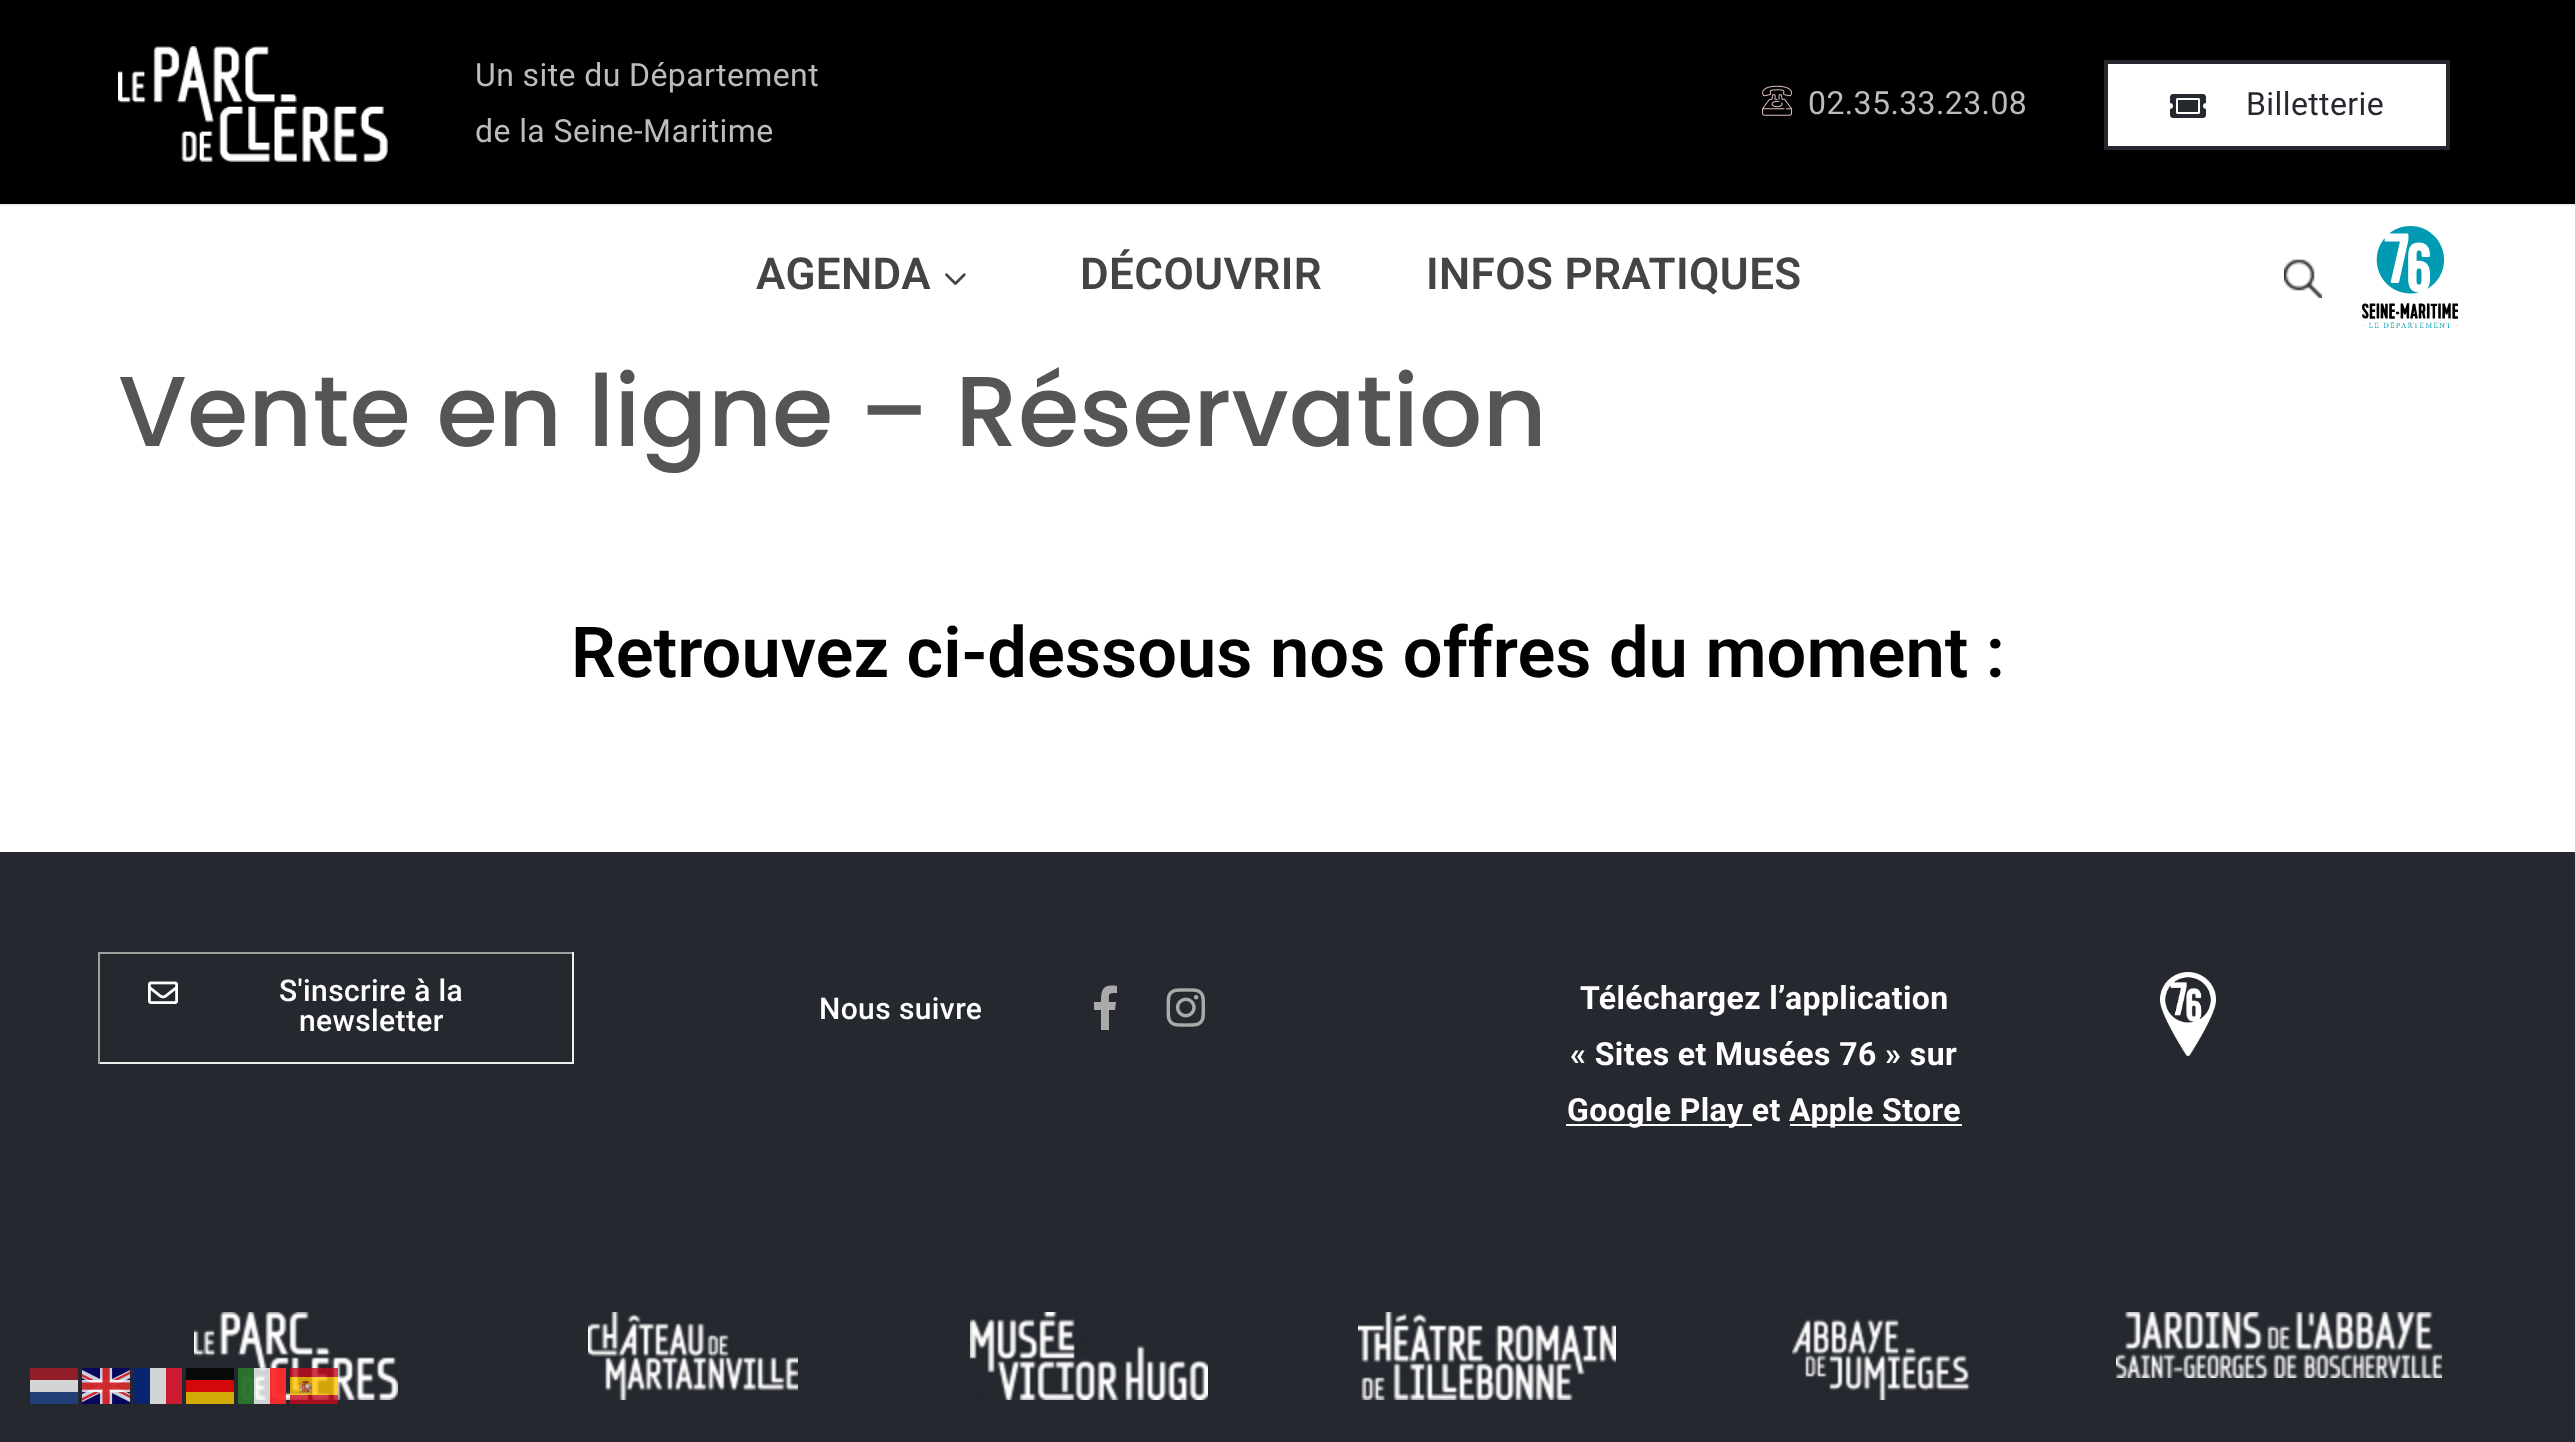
async function draw(canvas) {
	canvas.width = 2575;
	canvas.height = 1442;
	const c = canvas.getContext('2d');
	c.miterLimit = 4;
	c.fontKerning = 'normal';
	async function loadImage(src) {
		const img = new Image();
		img.src = src;
		await img.decode();
		return img;
	}

	c.fillStyle = '#fff';
	c.fillRect(0, 0, 2575, 1442);
	c.fillStyle = '#000';
	c.fillRect(0, 0, 2575, 204);
	c.fillStyle = '#eee';
	c.fillRect(0, 204, 2575, 2);
	c.drawImage(await loadImage('img1.png'), 118, 46, 270, 116);
	c.letterSpacing = '0.4px';
	c.font = '32px Roboto';
	c.fillStyle = '#bcbcbc';
	c.fillText('Un site du Département', 475, 86);
	c.fillText('de la Seine-Maritime', 475, 142);
	c.drawImage(await loadImage('img2.png'), 1762, 85, 31, 31);
	c.fillText('02.35.33.23.08', 1808, 114);
	c.fillStyle = '#fff';
	c.beginPath();
	c.rect(2106, 62, 342, 86);
	c.fill();
	c.strokeStyle = '#25282e';
	c.lineWidth = 4;
	c.stroke();
	c.drawImage(await loadImage('img3.png'), 2170, 94, 36, 24);
	c.fillStyle = '#25282e';
	c.fillText('Billetterie', 2246, 115);
	c.font = '600 44px Roboto';
	c.fillStyle = '#444';
	c.fillText('AGENDA', 756, 289);
	c.drawImage(await loadImage('img4.png'), 945, 273, 21, 12);
	c.fillText('DÉCOUVRIR', 1080, 289);
	c.fillText('INFOS PRATIQUES', 1426, 289);
	c.drawImage(await loadImage('img5.png'), 2284, 259, 38, 39);
	c.drawImage(await loadImage('img6.png'), 2362, 226, 96, 102);
	c.letterSpacing = '0px';
	c.font = '500 99.25px Poppins';
	c.fillStyle = '#555';
	c.fillText('Vente en ligne – Réservation', 118, 446);
	c.font = '600 70.4px Roboto';
	c.fillStyle = '#000102';
	c.fillText('Retrouvez ci-dessous nos offres du moment :', 571, 677);
	for (const [x, y, w, h, color] of [
		[0, 852, 2575, 590, '#25282e'],
		[98, 952, 476, 2, '#9f9f9f'],
		[572, 952, 2, 112, '#eee'],
		[98, 1062, 476, 2, '#eee'],
		[98, 952, 2, 112, '#9f9f9f'],
	]) {
		c.fillStyle = color;
		c.fillRect(x, y, w, h);
	}
	c.drawImage(await loadImage('img7.png'), 148, 981, 30, 23);
	c.letterSpacing = '0.4px';
	c.font = '500 30px Roboto';
	c.fillStyle = '#fff';
	for (const [text, x, y] of [
		['S\'inscrire à la', 279, 1001],
		['newsletter', 299, 1031],
		['Nous suivre', 819, 1019],
	]) {
		c.fillText(text, x, y);
	}
	c.fillStyle = '#aaa';
	c.beginPath();
	c.moveTo(1101, 1030);
	c.lineTo(1101, 1010);
	c.lineTo(1094, 1010);
	c.lineTo(1094, 1002);
	c.lineTo(1101, 1002);
	c.bezierCurveTo(1101, 989, 1103, 984, 1117, 986);
	c.lineTo(1117, 993);
	c.bezierCurveTo(1108, 993, 1109, 993, 1109, 1002);
	c.lineTo(1116, 1002);
	c.lineTo(1115, 1010);
	c.lineTo(1109, 1010);
	c.lineTo(1109, 1030);
	c.closePath();
	c.fill();
	c.drawImage(await loadImage('img8.png'), 1166, 988, 40, 39);
	c.font = 'bold 32px Roboto';
	c.fillStyle = '#fff';
	c.fillText('Téléchargez l’application', 1580, 1009);
	c.fillText('« Sites et Musées 76 » sur', 1570, 1065);
	c.fillRect(1566, 1124, 186, 2);
	c.fillText('Google Play et', 1567, 1121);
	c.fillRect(1790, 1124, 172, 2);
	c.fillText('Apple Store', 1789, 1121);
	c.drawImage(await loadImage('img9.png'), 2160, 972, 56, 84);
	c.drawImage(await loadImage('img10.png'), 194, 1312, 204, 88);
	c.drawImage(await loadImage('img11.png'), 588, 1312, 210, 88);
	c.drawImage(await loadImage('img12.png'), 970, 1312, 238, 88);
	c.drawImage(await loadImage('img13.png'), 1358, 1312, 258, 88);
	c.drawImage(await loadImage('img14.png'), 1792, 1319, 179, 81);
	c.drawImage(await loadImage('img15.png'), 2116, 1312, 326, 66);
	c.fillStyle = '#931e29';
	c.fillRect(30, 1368, 48, 12);
	c.drawImage(await loadImage('img16.png'), 82, 1368, 48, 36);
	for (const [x, y, w, h, color] of [
		[134, 1368, 16, 36, '#07266f'],
		[150, 1368, 16, 36, '#d3d4d5'],
		[166, 1368, 16, 36, '#ca1b30'],
		[186, 1368, 48, 12, '#070809'],
		[238, 1368, 48, 36, '#ffffffcc'],
		[30, 1380, 48, 12, '#d3d4d5'],
		[186, 1380, 48, 12, '#d30809'],
		[238, 1368, 16, 36, '#005700cc'],
		[270, 1368, 16, 36, '#fc0000cc'],
	]) {
		c.fillStyle = color;
		c.fillRect(x, y, w, h);
	}
	c.drawImage(await loadImage('img17.png'), 290, 1368, 48, 36);
	c.fillStyle = '#224078';
	c.fillRect(30, 1392, 48, 12);
	c.fillStyle = '#d3ab09';
	c.fillRect(186, 1392, 48, 12);
}

draw(document.querySelector('canvas'));
